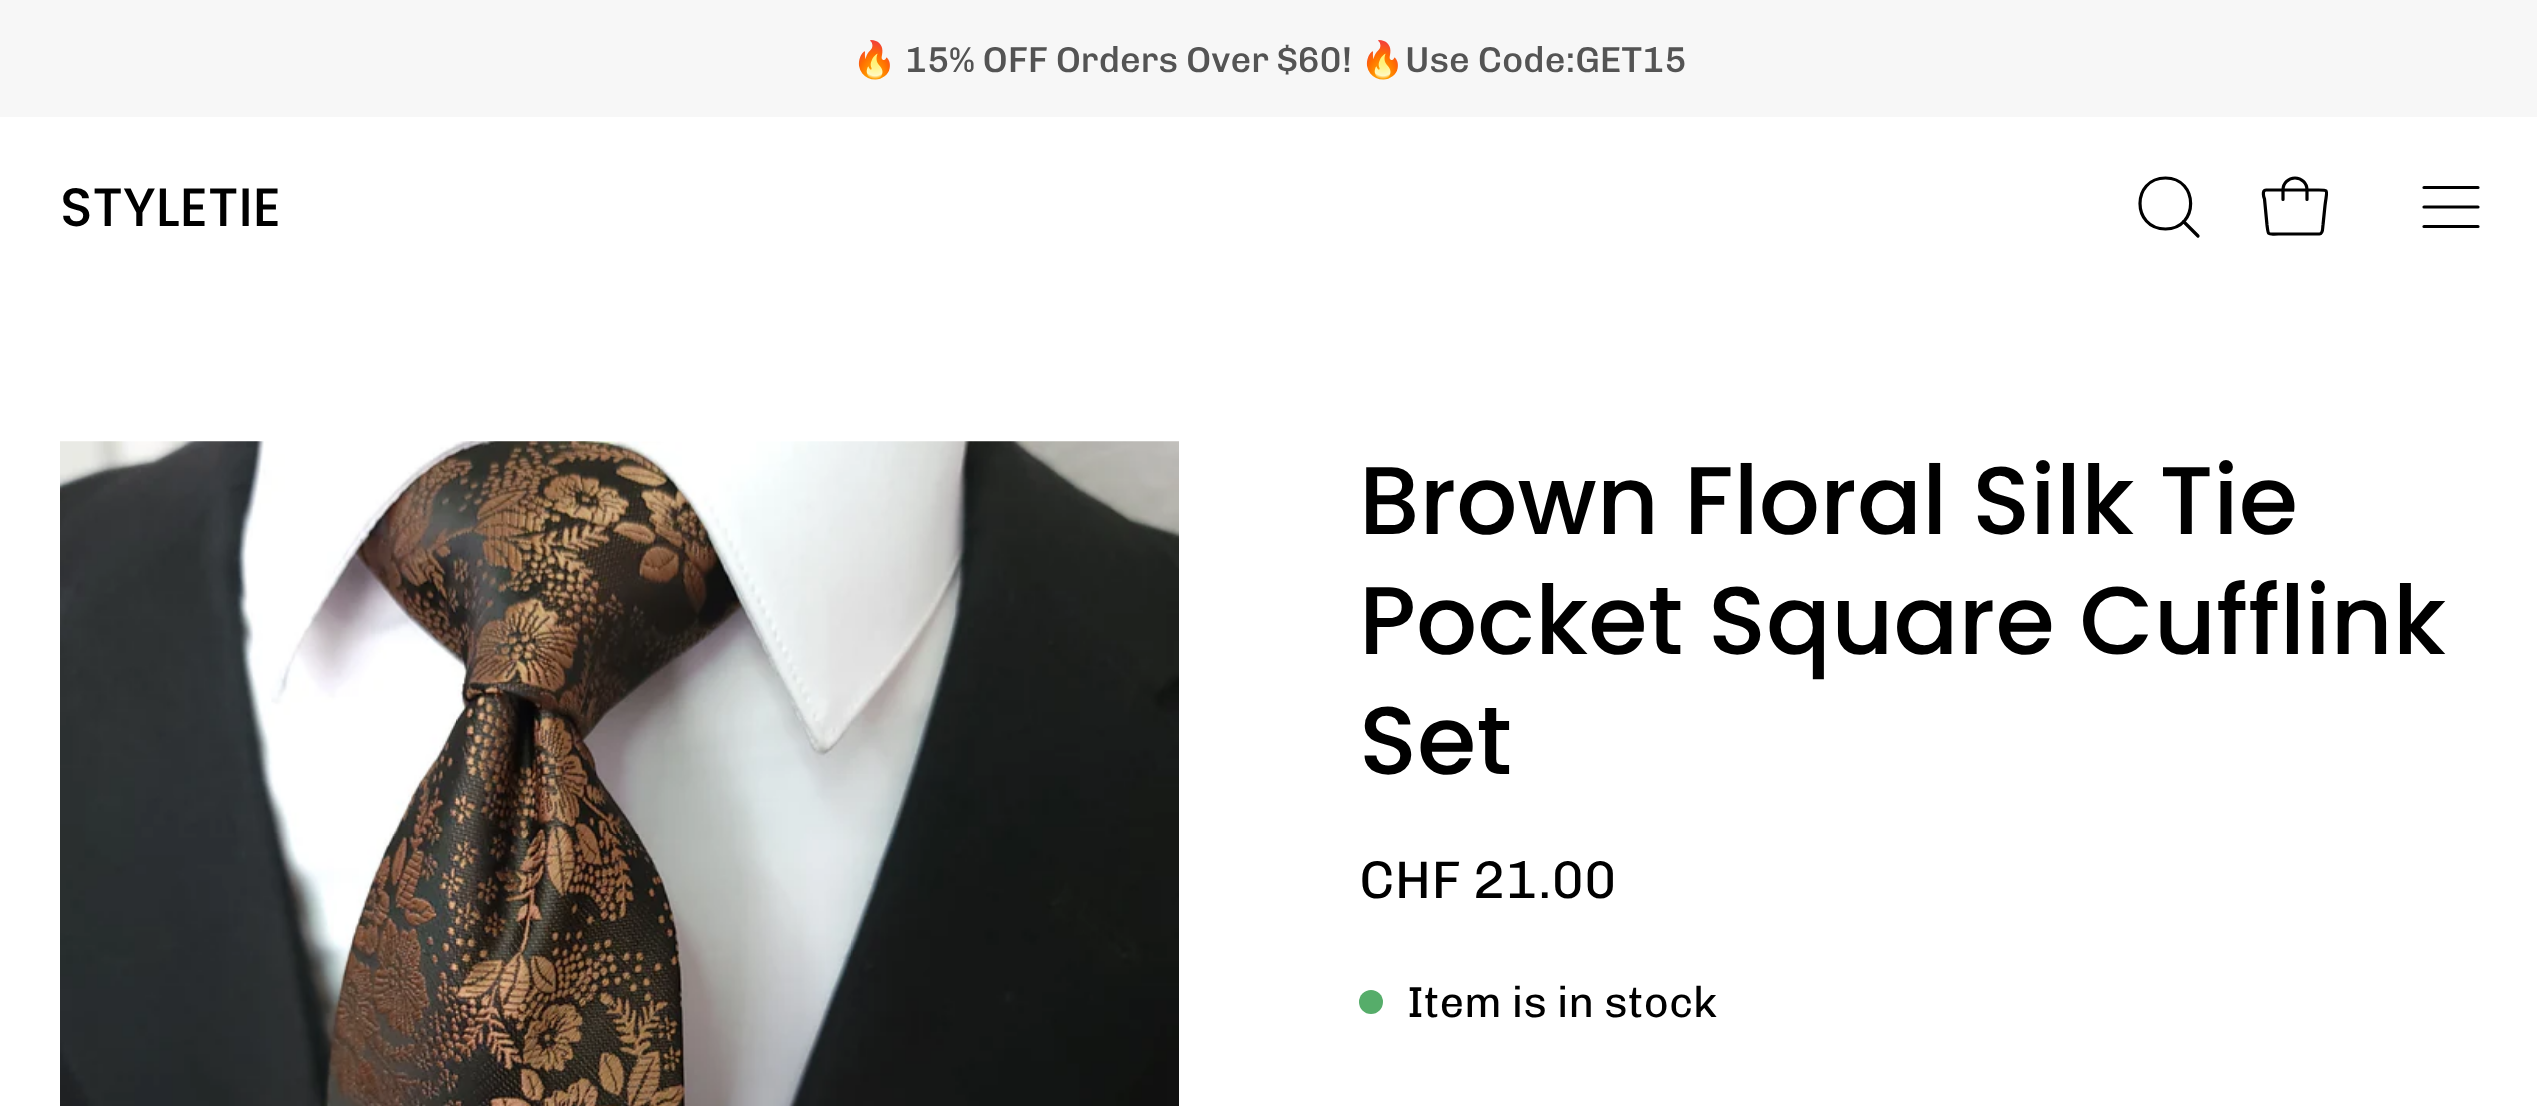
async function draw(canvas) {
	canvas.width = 2537;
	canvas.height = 1106;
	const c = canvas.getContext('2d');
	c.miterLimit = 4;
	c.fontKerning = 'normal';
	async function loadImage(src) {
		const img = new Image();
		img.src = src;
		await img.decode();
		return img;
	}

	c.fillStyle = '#fff';
	c.fillRect(0, 0, 2537, 1106);
	c.fillStyle = '#f7f7f7';
	c.fillRect(0, 0, 2537, 117);
	c.font = '36px Noto Color Emoji';
	c.fillStyle = '#545454';
	c.fillText('🔥', 852, 72);
	c.font = '500 36px Chivo';
	c.fillText('15% OFF Orders Over $60!', 905, 72);
	c.font = '36px Noto Color Emoji';
	c.fillText('🔥', 1360, 72);
	c.font = '500 36px Chivo';
	c.fillText('Use Code:GET15', 1405, 72);
	c.font = '500 54px Poppins';
	c.fillStyle = '#000';
	c.fillText('STYLETIE', 60, 226);
	c.beginPath();
	c.moveTo(2165.5, 229);
	c.bezierCurveTo(2199, 229, 2199, 178, 2165.5, 178);
	c.bezierCurveTo(2131.5, 178, 2131.5, 229, 2165.5, 229);
	c.closePath();
	c.moveTo(2183.5, 221.5);
	c.lineTo(2198, 236);
	c.strokeStyle = '#000';
	c.lineWidth = 3.2;
	c.lineCap = 'round';
	c.lineJoin = 'round';
	c.stroke();
	c.beginPath();
	c.moveTo(2319.5, 234);
	c.lineTo(2278.5, 234);
	c.bezierCurveTo(2267, 234, 2268.5, 236, 2267, 225);
	c.lineTo(2264.5, 199);
	c.bezierCurveTo(2264, 198, 2261.5, 190, 2266, 190);
	c.lineTo(2314.5, 190);
	c.bezierCurveTo(2330, 190, 2327, 188.5, 2325, 205.5);
	c.lineTo(2323, 225);
	c.bezierCurveTo(2322.5, 226.5, 2323.5, 234, 2319.5, 234);
	c.closePath();
	c.stroke();
	c.beginPath();
	c.moveTo(2283, 199.5);
	c.lineTo(2283, 190);
	c.bezierCurveTo(2283, 183, 2288.5, 178, 2295, 178);
	c.bezierCurveTo(2301.5, 178, 2307, 183, 2307, 190);
	c.lineTo(2307, 199.5);
	c.stroke();
	c.beginPath();
	c.moveTo(2424, 207);
	c.lineTo(2478, 207);
	c.moveTo(2424, 187.5);
	c.lineTo(2478, 187.5);
	c.moveTo(2424, 226.5);
	c.lineTo(2478, 226.5);
	c.stroke();
	c.drawImage(await loadImage('img1.png'), 60, 441, 1119, 665);
	c.font = '500 96px Poppins';
	for (const [text, x, y] of [
		['Brown Floral Silk Tie', 1359, 534],
		['Pocket Square Cufflink', 1359, 654],
		['Set', 1359, 774],
	]) {
		c.fillText(text, x, y);
	}
	c.font = '53px Chivo';
	c.fillText('CHF 21.00', 1359, 898);
	c.fillStyle = '#56ad6a';
	c.beginPath();
	c.arc(1371, 1002, 12, 0, 2 * Math.PI);
	c.fill();
	c.font = '43.25px Chivo';
	c.fillStyle = '#000';
	c.fillText('Item is in stock', 1407, 1017);
}

draw(document.querySelector('canvas'));
